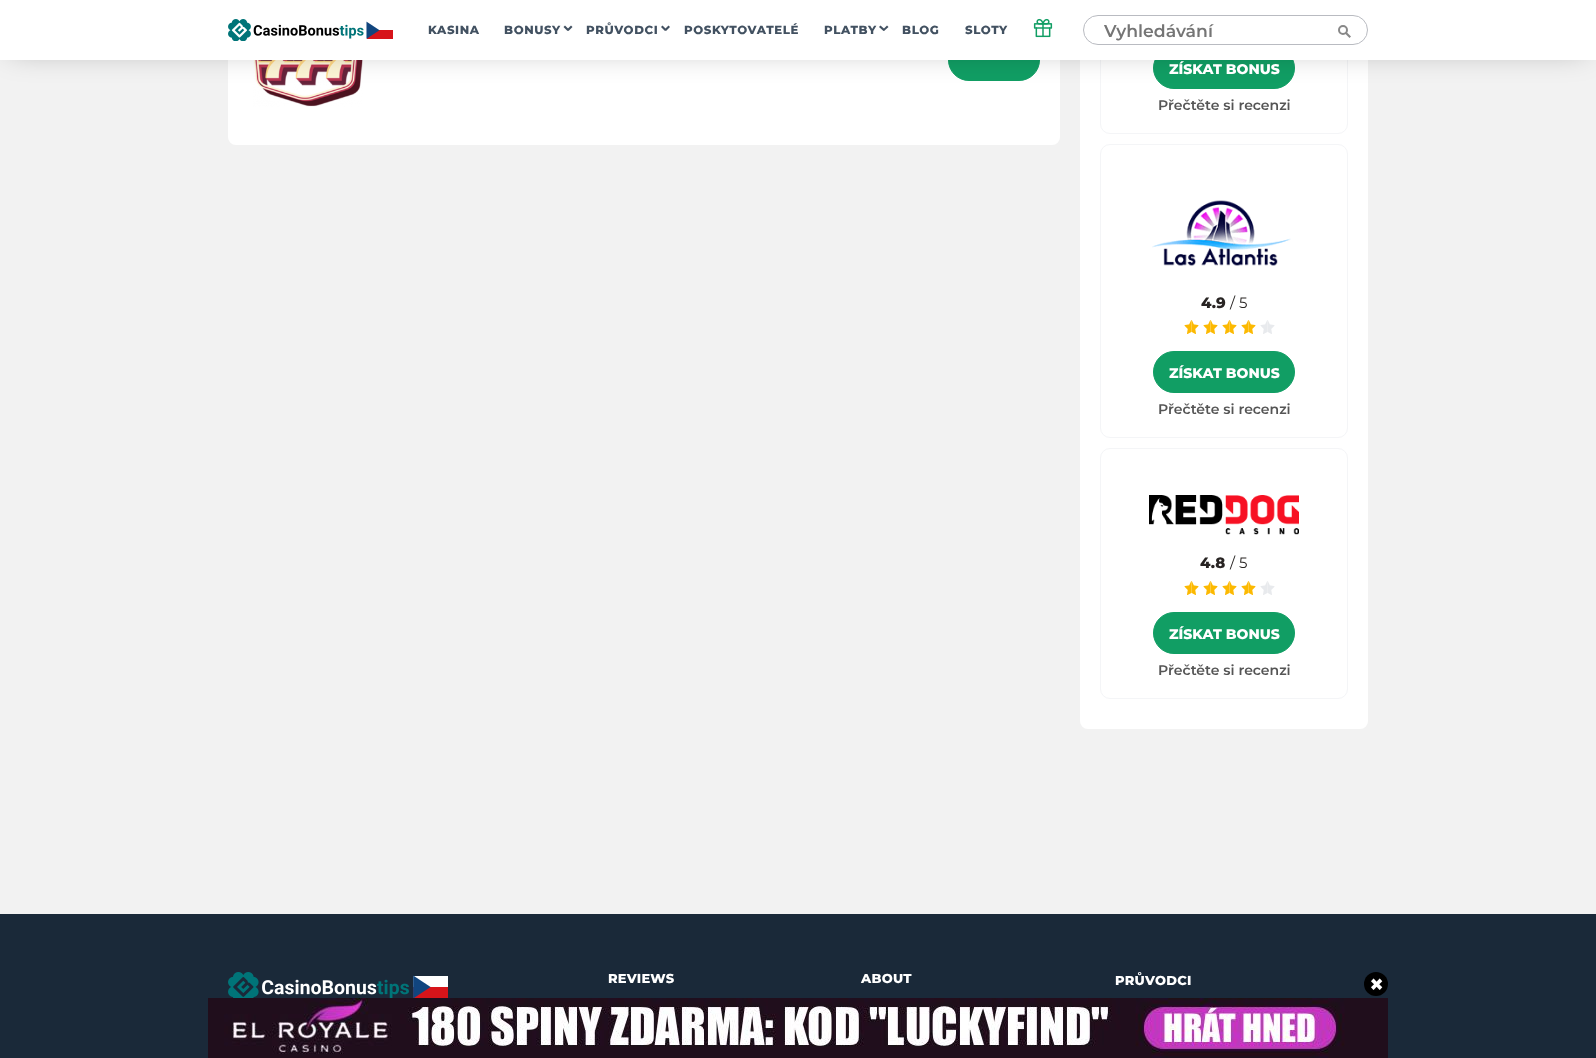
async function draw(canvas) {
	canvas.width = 1596;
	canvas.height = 1058;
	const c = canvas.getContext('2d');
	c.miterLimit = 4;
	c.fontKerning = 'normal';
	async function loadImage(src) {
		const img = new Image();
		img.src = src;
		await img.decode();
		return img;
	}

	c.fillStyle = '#f2f2f2';
	c.fillRect(0, 0, 1596, 1058);
	c.fillStyle = '#fff';
	c.beginPath();
	c.roundRect(228, -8, 832, 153, 8);
	c.fill();
	c.drawImage(await loadImage('img3.png'), 253, 60, 110, 47);
	c.fillStyle = '#119e64';
	c.beginPath();
	c.roundRect(948.5, 39.5, 91, 41, 20.5);
	c.fill();
	c.strokeStyle = '#119e64';
	c.stroke();
	c.fillStyle = '#fff';
	c.beginPath();
	c.roundRect(1080, -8, 288, 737, 8);
	c.fill();
	c.beginPath();
	c.roundRect(1100.5, -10.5, 247, 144, 9.5);
	c.strokeStyle = '#f4f5f7';
	c.stroke();
	c.fillStyle = '#119e64';
	c.beginPath();
	c.roundRect(1153.5, 47.5, 141, 41, 20.5);
	c.fill();
	c.strokeStyle = '#119e64';
	c.stroke();
	c.fillStyle = '#0000004d';
	c.filter = 'blur(15px)';
	c.beginPath();
	c.rect(10, 10, 1576, 40);
	c.fill();
	c.filter = 'none';
	c.fillStyle = '#fff';
	c.fillRect(0, 0, 1596, 60);
	c.drawImage(await loadImage('img1.png'), 228, 19, 165, 22);
	c.letterSpacing = '0.6px';
	c.font = '800 11.75px Montserrat';
	c.fillStyle = '#425161';
	c.fillText('KASINA', 428, 34);
	c.fillText('BONUSY', 504, 34);
	c.beginPath();
	c.moveTo(571, 25.5);
	c.lineTo(572.5, 27);
	c.lineTo(568.5, 31);
	c.lineTo(567, 29.5);
	c.closePath();
	c.fill();
	c.beginPath();
	c.moveTo(565, 25.5);
	c.lineTo(569, 29.5);
	c.lineTo(567.5, 31);
	c.lineTo(563.5, 27);
	c.closePath();
	c.fill();
	c.fillText('PRŮVODCI', 586, 34);
	c.beginPath();
	c.moveTo(668.5, 25.5);
	c.lineTo(670, 27);
	c.lineTo(666, 31);
	c.lineTo(664.5, 29.5);
	c.closePath();
	c.fill();
	c.beginPath();
	c.moveTo(662.5, 25.5);
	c.lineTo(666.5, 29.5);
	c.lineTo(665, 31);
	c.lineTo(661, 27);
	c.closePath();
	c.fill();
	c.fillText('POSKYTOVATELÉ', 684, 34);
	c.fillText('PLATBY', 824, 34);
	c.beginPath();
	c.moveTo(887, 25.5);
	c.lineTo(888.5, 27);
	c.lineTo(884, 31);
	c.lineTo(883, 29.5);
	c.closePath();
	c.fill();
	c.beginPath();
	c.moveTo(880.5, 25.5);
	c.lineTo(885, 29.5);
	c.lineTo(883.5, 31);
	c.lineTo(879, 27);
	c.closePath();
	c.fill();
	c.fillText('BLOG', 902, 34);
	c.fillText('SLOTY', 965, 34);
	c.drawImage(await loadImage('img2.png'), 1033, 18, 20, 20);
	c.beginPath();
	c.roundRect(1083.5, 15.5, 284, 29, 14.5);
	c.strokeStyle = '#b9bbc1';
	c.stroke();
	c.letterSpacing = '0px';
	c.font = '600 17.25px Montserrat';
	c.fillStyle = '#757575';
	c.fillText('Vyhledávání', 1104, 37);
	c.beginPath();
	c.arc(1343, 30, 4, 0, 2 * Math.PI);
	c.strokeStyle = '#888';
	c.lineWidth = 2;
	c.stroke();
	c.fillStyle = '#888';
	c.beginPath();
	c.moveTo(1346.5, 32);
	c.lineTo(1351, 36.5);
	c.lineTo(1349.5, 38);
	c.lineTo(1345, 33.5);
	c.closePath();
	c.fill();
	c.font = '800 14px Montserrat';
	c.fillStyle = '#fff';
	c.fillText('ZÍSKAT BONUS', 1169, 74);
	c.font = '600 14px Montserrat';
	c.fillStyle = '#555';
	c.fillText('Přečtěte si recenzi', 1158, 110);
	c.beginPath();
	c.roundRect(1100.5, 144.5, 247, 293, 9.5);
	c.strokeStyle = '#f4f5f7';
	c.lineWidth = 1;
	c.stroke();
	c.drawImage(await loadImage('img4.png'), 1152, 200, 139, 66);
	c.font = '800 15px Montserrat';
	c.fillStyle = '#282423';
	c.fillText('4.9', 1201, 308);
	c.font = '15px Montserrat';
	c.fillText('/ 5', 1230, 308);
	c.drawImage(await loadImage('img5.png'), 1184, 320, 15, 14);
	c.drawImage(await loadImage('img5.png'), 1203, 320, 15, 14);
	c.drawImage(await loadImage('img5.png'), 1222, 320, 15, 14);
	c.drawImage(await loadImage('img5.png'), 1241, 320, 15, 14);
	c.drawImage(await loadImage('img6.png'), 1260, 320, 15, 14);
	c.fillStyle = '#119e64';
	c.beginPath();
	c.roundRect(1153.5, 351.5, 141, 41, 20.5);
	c.fill();
	c.strokeStyle = '#119e64';
	c.stroke();
	c.font = '800 14px Montserrat';
	c.fillStyle = '#fff';
	c.fillText('ZÍSKAT BONUS', 1169, 378);
	c.font = '600 14px Montserrat';
	c.fillStyle = '#555';
	c.fillText('Přečtěte si recenzi', 1158, 414);
	c.beginPath();
	c.roundRect(1100.5, 448.5, 247, 250, 9.5);
	c.strokeStyle = '#f4f5f7';
	c.stroke();
	c.drawImage(await loadImage('img7.png'), 1149, 495, 150, 40);
	c.font = '800 15px Montserrat';
	c.fillStyle = '#282423';
	c.fillText('4.8', 1200, 568);
	c.font = '15px Montserrat';
	c.fillText('/ 5', 1230, 568);
	c.drawImage(await loadImage('img5.png'), 1184, 581, 15, 14);
	c.drawImage(await loadImage('img5.png'), 1203, 581, 15, 14);
	c.drawImage(await loadImage('img5.png'), 1222, 581, 15, 14);
	c.drawImage(await loadImage('img5.png'), 1241, 581, 15, 14);
	c.drawImage(await loadImage('img6.png'), 1260, 581, 15, 14);
	c.fillStyle = '#119e64';
	c.beginPath();
	c.roundRect(1153.5, 612.5, 141, 41, 20.5);
	c.fill();
	c.strokeStyle = '#119e64';
	c.stroke();
	c.font = '800 14px Montserrat';
	c.fillStyle = '#fff';
	c.fillText('ZÍSKAT BONUS', 1169, 639);
	c.font = '600 14px Montserrat';
	c.fillStyle = '#555';
	c.fillText('Přečtěte si recenzi', 1158, 675);
	c.fillStyle = '#1a2939';
	c.fillRect(0, 914, 1596, 144);
	c.drawImage(await loadImage('img8.png'), 228, 972, 220, 26);
	c.letterSpacing = '0.25px';
	c.font = '800 13px Montserrat';
	c.fillStyle = '#fff';
	for (const [text, x, y] of [
		['REVIEWS', 608, 983],
		['ABOUT', 861, 983],
		['PRŮVODCI', 1115, 985],
	]) {
		c.fillText(text, x, y);
	}
	c.fillStyle = '#000';
	c.beginPath();
	c.arc(1376, 984, 12, 0, 2 * Math.PI);
	c.fill();
	c.letterSpacing = '0px';
	c.font = '800 25px Montserrat';
	c.fillStyle = '#fff';
	c.fillText('×', 1369, 993);
	c.drawImage(await loadImage('img9.png'), 208, 998, 1180, 60);
}

draw(document.querySelector('canvas'));
